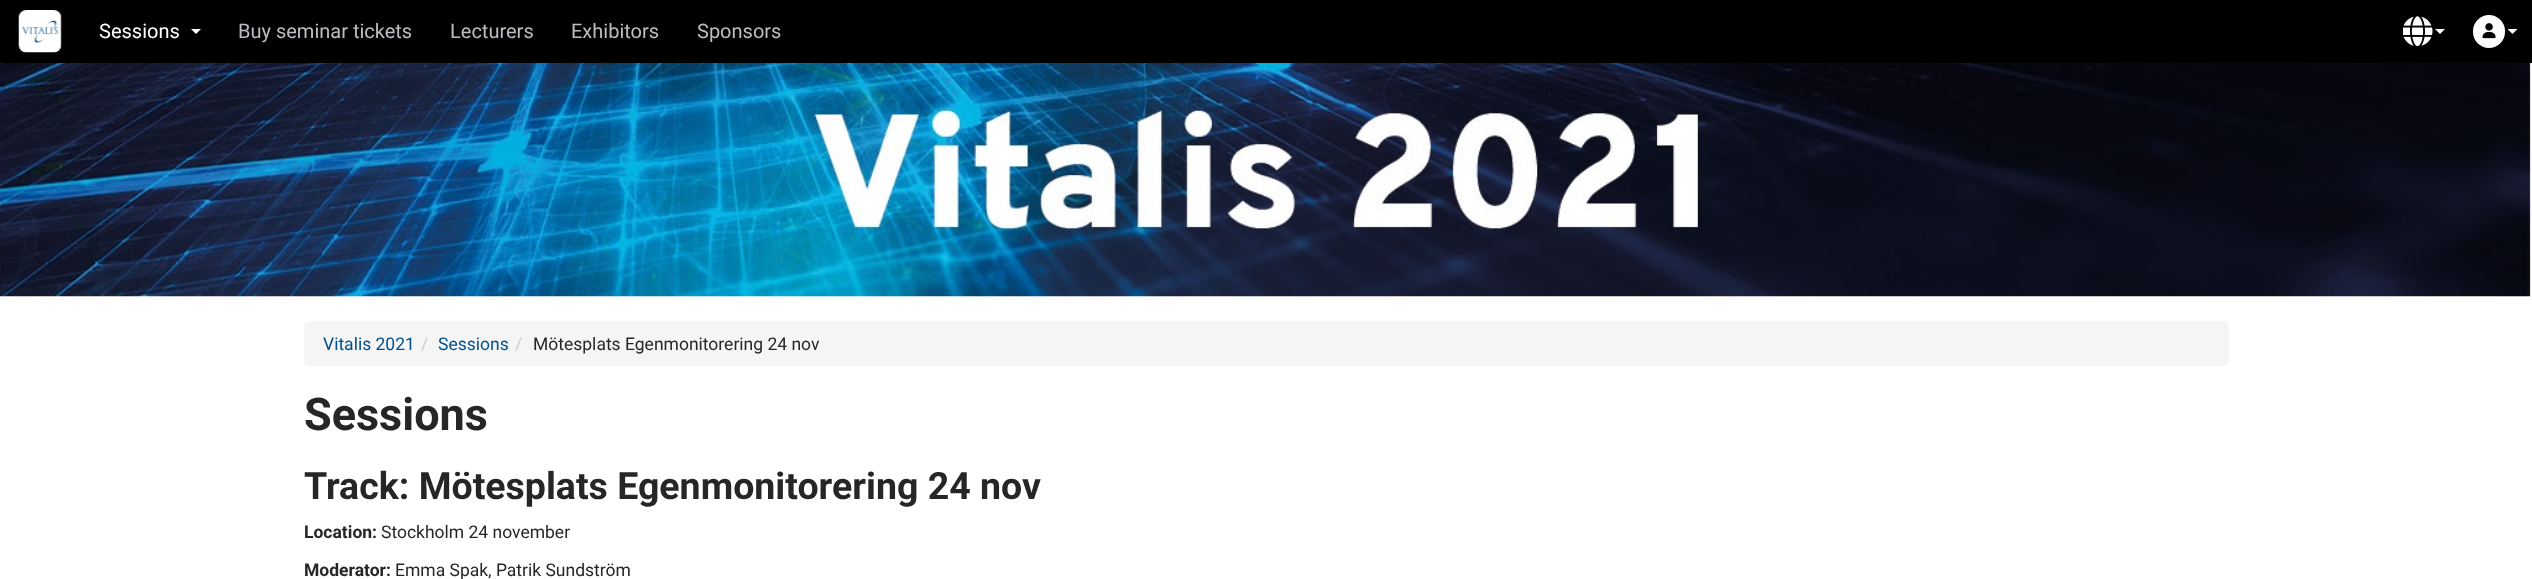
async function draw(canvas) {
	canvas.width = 2532;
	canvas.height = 579;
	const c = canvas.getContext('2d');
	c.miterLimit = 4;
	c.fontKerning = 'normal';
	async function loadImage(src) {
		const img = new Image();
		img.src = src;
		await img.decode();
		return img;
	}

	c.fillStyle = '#fff';
	c.fillRect(0, 0, 2532, 579);
	c.fillStyle = '#000';
	c.fillRect(0, 0, 2532, 63);
	c.drawImage(await loadImage('img1.png'), 18, 10, 44, 43);
	c.font = '20px Roboto';
	c.fillStyle = '#fff';
	c.fillText('Sessions', 99, 38);
	c.beginPath();
	c.moveTo(191, 29);
	c.lineTo(201, 29);
	c.lineTo(196, 34);
	c.closePath();
	c.fill();
	c.fillStyle = '#bdbdc3';
	for (const [text, x, y] of [
		['Buy seminar tickets', 238, 38],
		['Lecturers', 450, 38],
		['Exhibitors', 571, 38],
		['Sponsors', 697, 38],
	]) {
		c.fillText(text, x, y);
	}
	c.drawImage(await loadImage('img2.png'), 2403, 16, 30, 30);
	c.fillStyle = '#fff';
	c.beginPath();
	c.moveTo(2435, 29);
	c.lineTo(2445, 29);
	c.lineTo(2440, 34);
	c.closePath();
	c.fill();
	c.beginPath();
	c.roundRect(2473, 15, 32, 33, 16);
	c.fill();
	c.drawImage(await loadImage('img3.png'), 2482, 23, 14, 16);
	c.beginPath();
	c.moveTo(2507.5, 29);
	c.lineTo(2517.5, 29);
	c.lineTo(2512.5, 34);
	c.closePath();
	c.fill();
	c.drawImage(await loadImage('img4.png'), 0, 63, 2532, 234);
	c.fillStyle = '#f5f5f5';
	c.beginPath();
	c.roundRect(304, 321, 1925, 45, 5);
	c.fill();
	c.font = '17.5px Roboto';
	c.fillStyle = '#00508b';
	c.fillText('Vitalis 2021', 323, 350);
	c.fillStyle = '#ccc';
	c.fillText('/', 421, 350);
	c.fillStyle = '#00508b';
	c.fillText('Sessions', 438, 350);
	c.fillStyle = '#ccc';
	c.fillText('/', 515, 350);
	c.fillStyle = '#262626';
	c.fillText('Mötesplats Egenmonitorering 24 nov', 533, 350);
	c.font = 'bold 45px Roboto';
	c.fillText('Sessions', 304, 430);
	c.font = 'bold 37.5px Roboto';
	c.fillText('Track: Mötesplats Egenmonitorering 24 nov', 304, 499);
	c.font = 'bold 17.5px Roboto';
	c.fillText('Location:', 304, 538);
	c.font = '17.5px Roboto';
	c.fillText('Stockholm 24 november', 381, 538);
	c.font = 'bold 17.5px Roboto';
	c.fillText('Moderator:', 304, 576);
	c.font = '17.5px Roboto';
	c.fillText('Emma Spak, Patrik Sundström', 395, 576);
}

draw(document.querySelector('canvas'));
